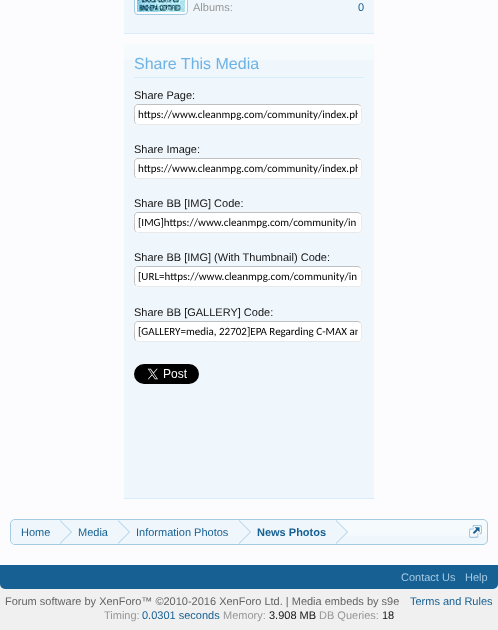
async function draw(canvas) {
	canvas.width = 498;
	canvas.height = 630;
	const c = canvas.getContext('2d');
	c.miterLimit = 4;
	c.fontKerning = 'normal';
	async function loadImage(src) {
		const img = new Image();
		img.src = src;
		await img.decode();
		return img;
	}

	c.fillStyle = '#f0f0f0';
	c.fillRect(0, 0, 498, 630);
	for (const [x, y, w, h, color] of [
		[0, 0, 498, 565, '#fcfcff'],
		[124, 0, 250, 33, '#f0f7fc'],
		[124, 33, 250, 1, '#d7edfc'],
	]) {
		c.fillStyle = color;
		c.fillRect(x, y, w, h);
	}
	c.fillStyle = '#fcfcff';
	c.beginPath();
	c.roundRect(134.5, -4.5, 53, 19, 3.5);
	c.fill();
	c.strokeStyle = '#a5cae4';
	c.stroke();
	c.drawImage(await loadImage('img1.png'), 137, 0, 48, 12);
	c.font = '11px Liberation Sans';
	c.fillStyle = '#969696';
	c.fillText('Albums:', 193, 11);
	c.fillStyle = '#176093';
	c.fillText('0', 358, 11);
	c.fillStyle = '#f0f7fc';
	c.fillRect(124, 44, 250, 454);
	c.drawImage(await loadImage('img2.png'), 124, 44, 250, 16);
	c.fillStyle = '#d7edfc';
	c.fillRect(124, 498, 250, 1);
	c.fillRect(134, 77, 230, 1);
	c.font = '16px Liberation Sans';
	c.fillStyle = '#6cb2e4';
	c.fillText('Share This Media', 134, 69);
	c.font = '11px Liberation Sans';
	c.fillStyle = '#141414';
	c.fillText('Share Page:', 134, 99);
	c.fillStyle = '#fff';
	c.beginPath();
	c.roundRect(134, 104, 228, 21, 4);
	c.fill();
	c.beginPath();
	c.moveTo(360.5, 105.5);
	c.lineTo(361.5, 107.5);
	c.lineTo(361.5, 114.5);
	c.bezierCurveTo(361.5, 117.5, 363, 124.5, 358, 124.5);
	c.lineTo(138, 124.5);
	c.lineTo(135.5, 123.5);
	c.strokeStyle = '#e9e9e9';
	c.stroke();
	c.save();
	c.beginPath();
	c.rect(134, 104, 230, 23);
	c.clip();
	c.beginPath();
	c.moveTo(135.5, 123.5);
	c.lineTo(134.5, 121.5);
	c.lineTo(134.5, 114.5);
	c.bezierCurveTo(134.5, 111.5, 133, 104.5, 138, 104.5);
	c.lineTo(358, 104.5);
	c.lineTo(360.5, 105.5);
	c.strokeStyle = '#c0c0c0';
	c.stroke();
	c.restore();
	c.save();
	c.beginPath();
	c.rect(138, 108, 220, 13);
	c.clip();
	c.font = '11px Carlito';
	c.fillStyle = '#000';
	c.fillText('https://www.cleanmpg.com/community/index.ph', 138, 118);
	c.restore();
	c.fillStyle = '#141414';
	c.fillText('Share Image:', 134, 153);
	c.fillStyle = '#fff';
	c.beginPath();
	c.roundRect(134, 158, 228, 21, 4);
	c.fill();
	c.beginPath();
	c.moveTo(360.5, 159.5);
	c.lineTo(361.5, 161.5);
	c.lineTo(361.5, 168.5);
	c.bezierCurveTo(361.5, 171.5, 363, 178.5, 358, 178.5);
	c.lineTo(138, 178.5);
	c.lineTo(135.5, 177.5);
	c.stroke();
	c.save();
	c.beginPath();
	c.rect(134, 158, 230, 23);
	c.clip();
	c.beginPath();
	c.moveTo(135.5, 177.5);
	c.lineTo(134.5, 175.5);
	c.lineTo(134.5, 168.5);
	c.bezierCurveTo(134.5, 165.5, 133, 158.5, 138, 158.5);
	c.lineTo(358, 158.5);
	c.lineTo(360.5, 159.5);
	c.strokeStyle = '#c0c0c0';
	c.stroke();
	c.restore();
	c.save();
	c.beginPath();
	c.rect(138, 162, 220, 13);
	c.clip();
	c.font = '11px Carlito';
	c.fillStyle = '#000';
	c.fillText('https://www.cleanmpg.com/community/index.ph', 138, 172);
	c.restore();
	c.fillStyle = '#141414';
	c.fillText('Share BB [IMG] Code:', 134, 207);
	c.fillStyle = '#fff';
	c.beginPath();
	c.roundRect(134, 212, 228, 21, 4);
	c.fill();
	c.beginPath();
	c.moveTo(360.5, 213.5);
	c.lineTo(361.5, 215.5);
	c.lineTo(361.5, 222.5);
	c.bezierCurveTo(361.5, 225.5, 363, 232.5, 358, 232.5);
	c.lineTo(138, 232.5);
	c.lineTo(135.5, 231.5);
	c.stroke();
	c.save();
	c.beginPath();
	c.rect(134, 212, 230, 23);
	c.clip();
	c.beginPath();
	c.moveTo(135.5, 231.5);
	c.lineTo(134.5, 229.5);
	c.lineTo(134.5, 222.5);
	c.bezierCurveTo(134.5, 219.5, 133, 212.5, 138, 212.5);
	c.lineTo(358, 212.5);
	c.lineTo(360.5, 213.5);
	c.strokeStyle = '#c0c0c0';
	c.stroke();
	c.restore();
	c.font = '11px Carlito';
	c.fillStyle = '#000';
	c.fillText('[IMG]https://www.cleanmpg.com/community/in', 138, 226);
	c.font = '11px Liberation Sans';
	c.fillStyle = '#141414';
	c.fillText('Share BB [IMG] (With Thumbnail) Code:', 134, 261);
	c.fillStyle = '#fff';
	c.beginPath();
	c.roundRect(134, 266, 228, 21, 4);
	c.fill();
	c.beginPath();
	c.moveTo(360.5, 267.5);
	c.lineTo(361.5, 269.5);
	c.lineTo(361.5, 276.5);
	c.bezierCurveTo(361.5, 279.5, 363, 286.5, 358, 286.5);
	c.lineTo(138, 286.5);
	c.lineTo(135.5, 285.5);
	c.stroke();
	c.save();
	c.beginPath();
	c.rect(134, 266, 230, 23);
	c.clip();
	c.beginPath();
	c.moveTo(135.5, 285.5);
	c.lineTo(134.5, 283.5);
	c.lineTo(134.5, 276.5);
	c.bezierCurveTo(134.5, 273.5, 133, 266.5, 138, 266.5);
	c.lineTo(358, 266.5);
	c.lineTo(360.5, 267.5);
	c.strokeStyle = '#c0c0c0';
	c.stroke();
	c.restore();
	c.font = '11px Carlito';
	c.fillStyle = '#000';
	c.fillText('[URL=https://www.cleanmpg.com/community/in', 138, 280);
	c.font = '11px Liberation Sans';
	c.fillStyle = '#141414';
	c.fillText('Share BB [GALLERY] Code:', 134, 316);
	c.fillStyle = '#fff';
	c.beginPath();
	c.roundRect(134, 321, 228, 21, 4);
	c.fill();
	c.beginPath();
	c.moveTo(360.5, 322.5);
	c.lineTo(361.5, 324.5);
	c.lineTo(361.5, 331.5);
	c.bezierCurveTo(361.5, 334.5, 363, 341.5, 358, 341.5);
	c.lineTo(138, 341.5);
	c.lineTo(135.5, 340.5);
	c.stroke();
	c.save();
	c.beginPath();
	c.rect(134, 321, 230, 23);
	c.clip();
	c.beginPath();
	c.moveTo(135.5, 340.5);
	c.lineTo(134.5, 338.5);
	c.lineTo(134.5, 331.5);
	c.bezierCurveTo(134.5, 328.5, 133, 321.5, 138, 321.5);
	c.lineTo(358, 321.5);
	c.lineTo(360.5, 322.5);
	c.strokeStyle = '#c0c0c0';
	c.stroke();
	c.restore();
	c.save();
	c.beginPath();
	c.rect(138, 325, 220, 13);
	c.clip();
	c.font = '11px Carlito';
	c.fillStyle = '#000';
	c.fillText('[GALLERY=media, 22702]EPA Regarding C-MAX an', 138, 335);
	c.restore();
	c.drawImage(await loadImage('img3.png'), 134, 364, 65, 20);
	c.fillStyle = '#f0f7fc';
	c.beginPath();
	c.roundRect(10, 519, 478, 26, 5);
	c.fill();
	c.drawImage(await loadImage('img4.png'), 10, 520, 478, 16);
	c.beginPath();
	c.roundRect(10.5, 519.5, 477, 25, 4.5);
	c.strokeStyle = '#a5cae4';
	c.stroke();
	c.save();
	c.beginPath();
	c.roundRect(11, 520, 476, 24, 4);
	c.clip();
	c.beginPath();
	c.roundRect(11, 520, 49, 25, [5, 0, 0, 5]);
	c.fill();
	c.restore();
	c.fillStyle = '#176093';
	c.fillText('Home', 21, 536);
	c.fillStyle = '#f0f7fc';
	c.fillRect(60, 520, 276, 16);
	c.fillStyle = '#a5cae4';
	c.beginPath();
	c.moveTo(60, 544);
	c.lineTo(60, 520);
	c.lineTo(72, 532);
	c.closePath();
	c.fill();
	c.fillStyle = '#f0f7fc';
	c.beginPath();
	c.moveTo(59, 544);
	c.lineTo(59, 520);
	c.lineTo(71, 532);
	c.closePath();
	c.fill();
	c.fillStyle = '#176093';
	c.fillText('Media', 78, 536);
	c.fillStyle = '#a5cae4';
	c.beginPath();
	c.moveTo(118, 544);
	c.lineTo(118, 520);
	c.lineTo(130, 532);
	c.closePath();
	c.fill();
	c.fillStyle = '#f0f7fc';
	c.beginPath();
	c.moveTo(117, 544);
	c.lineTo(117, 520);
	c.lineTo(129, 532);
	c.closePath();
	c.fill();
	c.fillStyle = '#176093';
	c.fillText('Information Photos', 136, 536);
	c.fillStyle = '#a5cae4';
	c.beginPath();
	c.moveTo(239, 544);
	c.lineTo(239, 520);
	c.lineTo(251, 532);
	c.closePath();
	c.fill();
	c.fillStyle = '#f0f7fc';
	c.beginPath();
	c.moveTo(238, 544);
	c.lineTo(238, 520);
	c.lineTo(250, 532);
	c.closePath();
	c.fill();
	c.font = 'bold 11px Liberation Sans';
	c.fillStyle = '#176093';
	c.fillText('News Photos', 257, 536);
	c.fillStyle = '#a5cae4';
	c.beginPath();
	c.moveTo(336, 544);
	c.lineTo(336, 520);
	c.lineTo(348, 532);
	c.closePath();
	c.fill();
	c.fillStyle = '#f0f7fc';
	c.beginPath();
	c.moveTo(335, 544);
	c.lineTo(335, 520);
	c.lineTo(347, 532);
	c.closePath();
	c.fill();
	c.drawImage(await loadImage('img5.png'), 469, 525, 13, 13);
	c.fillStyle = '#176093';
	c.beginPath();
	c.roundRect(0, 565, 498, 24, [0, 0, 5, 5]);
	c.fill();
	c.font = '11px Liberation Sans';
	c.fillStyle = '#a5cae4';
	c.fillText('Contact Us', 401, 581);
	c.fillText('Help', 465, 581);
	c.fillStyle = '#646464';
	c.fillText('Forum software by XenForo™ ©2010-2016 XenForo Ltd. | Media embeds by s9e', 5, 605);
	c.fillStyle = '#176093';
	c.fillText('Terms and Rules', 410, 605);
	c.fillStyle = '#969696';
	c.fillText('Timing:', 104, 619);
	c.fillStyle = '#176093';
	c.fillText('0.0301 seconds', 142, 619);
	c.fillStyle = '#969696';
	c.fillText('Memory:', 223, 619);
	c.fillStyle = '#141414';
	c.fillText('3.908 MB', 269, 619);
	c.fillStyle = '#969696';
	c.fillText('DB Queries:', 319, 619);
	c.fillStyle = '#141414';
	c.fillText('18', 382, 619);
}

draw(document.querySelector('canvas'));
